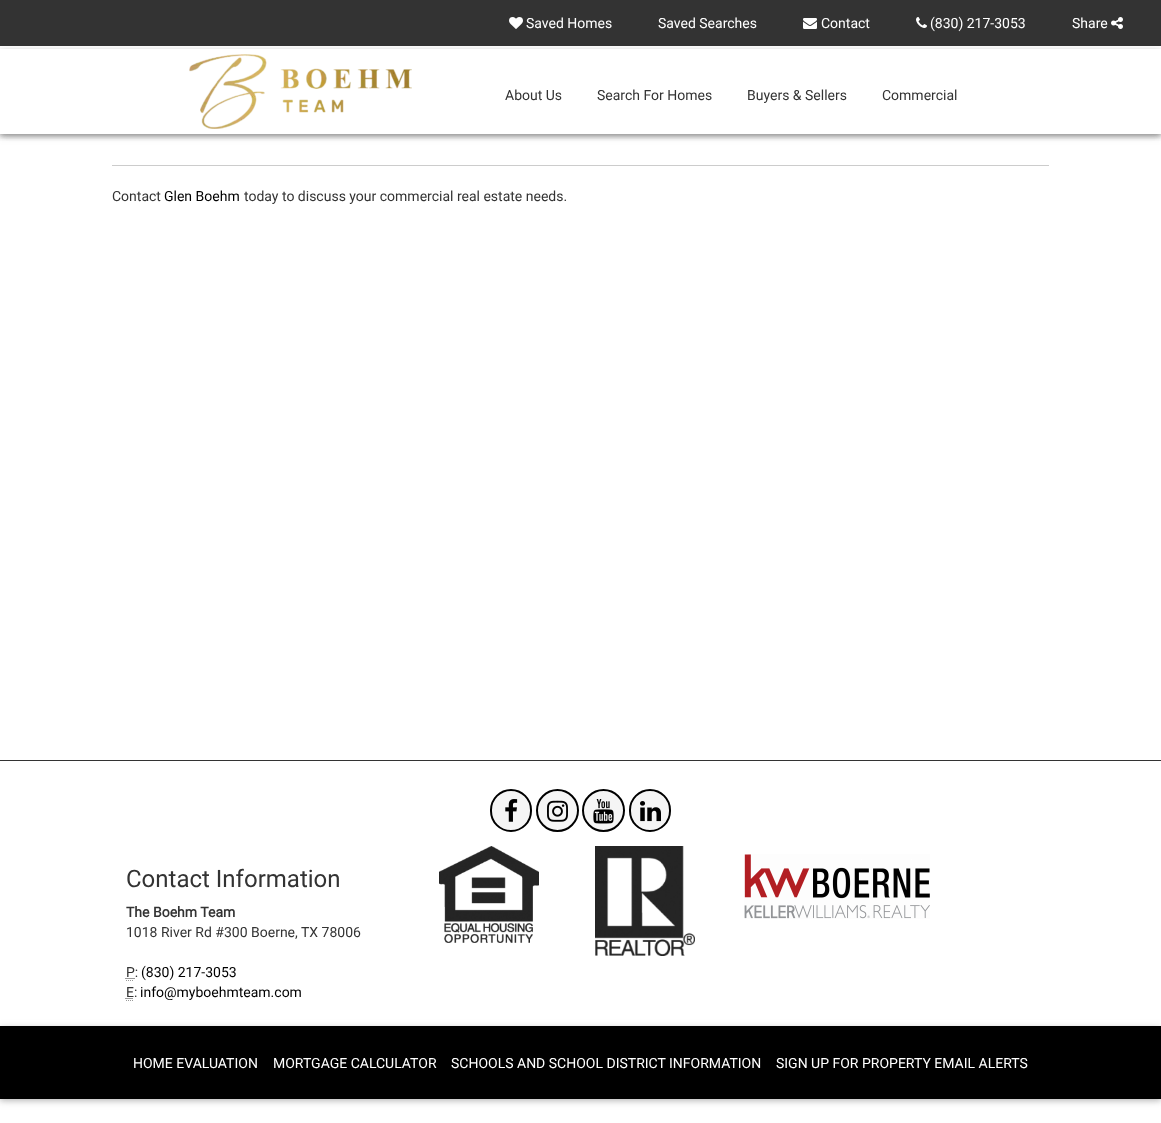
async function draw(canvas) {
	canvas.width = 1161;
	canvas.height = 1123;
	const c = canvas.getContext('2d');
	c.miterLimit = 4;
	c.fontKerning = 'normal';
	async function loadImage(src) {
		const img = new Image();
		img.src = src;
		await img.decode();
		return img;
	}

	c.fillStyle = '#fff';
	c.fillRect(0, 0, 1161, 1123);
	c.save();
	c.beginPath();
	c.rect(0, 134, 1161, 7);
	c.clip();
	c.fillStyle = '#0000001f';
	c.filter = 'blur(5px)';
	c.beginPath();
	c.rect(0, 2, 1161, 134);
	c.fill();
	c.filter = 'none';
	c.restore();
	c.save();
	c.beginPath();
	c.rect(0, 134, 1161, 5);
	c.clip();
	c.fillStyle = '#00000029';
	c.filter = 'blur(2.5px)';
	c.beginPath();
	c.rect(0, 2, 1161, 134);
	c.fill();
	c.filter = 'none';
	c.restore();
	c.save();
	c.beginPath();
	c.moveTo(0, 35);
	c.lineTo(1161, 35);
	c.lineTo(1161, 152);
	c.lineTo(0, 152);
	c.closePath();
	c.moveTo(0, 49);
	c.lineTo(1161, 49);
	c.lineTo(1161, 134);
	c.lineTo(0, 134);
	c.closePath();
	c.clip('evenodd');
	c.fillStyle = '#0000001f';
	c.filter = 'blur(5px)';
	c.beginPath();
	c.rect(0, 51, 1161, 85);
	c.fill();
	c.filter = 'none';
	c.restore();
	c.save();
	c.beginPath();
	c.moveTo(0, 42);
	c.lineTo(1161, 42);
	c.lineTo(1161, 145);
	c.lineTo(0, 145);
	c.closePath();
	c.moveTo(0, 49);
	c.lineTo(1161, 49);
	c.lineTo(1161, 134);
	c.lineTo(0, 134);
	c.closePath();
	c.clip('evenodd');
	c.fillStyle = '#00000029';
	c.filter = 'blur(2.5px)';
	c.beginPath();
	c.rect(0, 51, 1161, 85);
	c.fill();
	c.filter = 'none';
	c.restore();
	c.fillStyle = '#333';
	c.fillRect(0, 0, 1161, 46);
	c.drawImage(await loadImage('img1.png'), 509, 17, 14, 12);
	c.font = '14px Roboto';
	c.fillStyle = '#fff';
	c.fillText('Saved Homes', 526, 28);
	c.fillText('Saved Searches', 658, 28);
	c.drawImage(await loadImage('img2.png'), 803, 18, 14, 11);
	c.fillText('Contact', 821, 28);
	c.drawImage(await loadImage('img3.png'), 916, 17, 11, 11);
	c.fillText('(830) 217-3053', 930, 28);
	c.fillText('Share', 1072, 28);
	c.drawImage(await loadImage('img4.png'), 1111, 17, 12, 12);
	c.drawImage(await loadImage('img5.png'), 189, 54, 223, 75);
	c.fillStyle = '#333';
	for (const [text, x, y] of [
		['About Us', 505, 100],
		['Search For Homes', 597, 100],
		['Buyers & Sellers', 747, 100],
		['Commercial', 882, 100],
	]) {
		c.fillText(text, x, y);
	}
	c.fillStyle = '#ccc';
	c.fillRect(112, 165, 937, 1);
	c.fillStyle = '#333';
	c.fillText('Contact', 112, 201);
	c.fillStyle = '#000';
	c.fillText('Glen Boehm', 164, 201);
	c.fillStyle = '#333';
	c.fillText('today to discuss your commercial real estate needs.', 244, 201);
	c.fillRect(0, 760, 1161, 1);
	c.fillStyle = '#f5f5f5';
	c.beginPath();
	c.roundRect(491, 790, 40, 41, 20);
	c.fill();
	c.strokeStyle = '#000';
	c.lineWidth = 2;
	c.stroke();
	c.drawImage(await loadImage('img6.png'), 505, 799, 13, 23);
	c.beginPath();
	c.arc(557.5, 810.5, 20.5, 0, 2 * Math.PI);
	c.fill();
	c.stroke();
	c.drawImage(await loadImage('img7.png'), 547, 800, 21, 22);
	c.beginPath();
	c.arc(603.5, 810.5, 20.5, 0, 2 * Math.PI);
	c.fill();
	c.stroke();
	c.drawImage(await loadImage('img8.png'), 593, 799, 21, 25);
	c.beginPath();
	c.roundRect(630, 790, 40, 41, 20);
	c.fill();
	c.stroke();
	c.drawImage(await loadImage('img9.png'), 640, 801, 21, 21);
	c.font = '24px Roboto';
	c.fillStyle = '#333';
	c.fillText('Contact Information', 126, 887);
	c.font = 'bold 14px Roboto';
	c.fillText('The Boehm Team', 126, 917);
	c.font = '14px Roboto';
	c.fillText('1018 River Rd #300 Boerne, TX 78006', 126, 937);
	c.fillText('P:', 126, 977);
	c.beginPath();
	c.moveTo(126, 980.5);
	c.lineTo(134, 980.5);
	c.strokeStyle = '#999';
	c.lineWidth = 1;
	c.setLineDash([1, 1]);
	c.stroke();
	c.beginPath();
	c.moveTo(125.5, 978.5);
	c.lineTo(134.5, 978.5);
	c.strokeStyle = '#333';
	c.stroke();
	c.fillStyle = '#000';
	c.fillText('(830) 217-3053', 141, 977);
	c.fillStyle = '#333';
	c.fillText('E:', 126, 997);
	c.beginPath();
	c.moveTo(126, 1000.5);
	c.lineTo(127, 1000.5);
	c.moveTo(128, 1000.5);
	c.lineTo(129, 1000.5);
	c.moveTo(130, 1000.5);
	c.lineTo(131, 1000.5);
	c.moveTo(132, 1000.5);
	c.lineTo(133, 1000.5);
	c.strokeStyle = '#999';
	c.setLineDash([]);
	c.stroke();
	c.beginPath();
	c.moveTo(125.5, 998.5);
	c.lineTo(133.5, 998.5);
	c.strokeStyle = '#333';
	c.setLineDash([1, 1]);
	c.stroke();
	c.fillStyle = '#000';
	c.fillText('info@myboehmteam.com', 140, 997);
	c.drawImage(await loadImage('img10.png'), 439, 846, 100, 97);
	c.drawImage(await loadImage('img11.png'), 595, 846, 100, 110);
	c.drawImage(await loadImage('img12.png'), 744, 854, 186, 65);
	c.fillRect(0, 1026, 1161, 73);
	c.save();
	c.beginPath();
	c.moveTo(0, 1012);
	c.lineTo(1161, 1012);
	c.lineTo(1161, 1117);
	c.lineTo(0, 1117);
	c.closePath();
	c.moveTo(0, 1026);
	c.lineTo(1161, 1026);
	c.lineTo(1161, 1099);
	c.lineTo(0, 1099);
	c.closePath();
	c.clip('evenodd');
	c.fillStyle = '#0000001f';
	c.filter = 'blur(5px)';
	c.beginPath();
	c.rect(0, 1028, 1161, 73);
	c.fill();
	c.filter = 'none';
	c.restore();
	c.save();
	c.beginPath();
	c.moveTo(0, 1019);
	c.lineTo(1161, 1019);
	c.lineTo(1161, 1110);
	c.lineTo(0, 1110);
	c.closePath();
	c.moveTo(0, 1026);
	c.lineTo(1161, 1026);
	c.lineTo(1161, 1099);
	c.lineTo(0, 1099);
	c.closePath();
	c.clip('evenodd');
	c.fillStyle = '#00000029';
	c.filter = 'blur(2.5px)';
	c.beginPath();
	c.rect(0, 1028, 1161, 73);
	c.fill();
	c.filter = 'none';
	c.restore();
	c.fillStyle = '#fff';
	for (const [text, x, y] of [
		['HOME EVALUATION', 133, 1068],
		['MORTGAGE CALCULATOR', 273, 1068],
		['SCHOOLS AND SCHOOL DISTRICT INFORMATION', 451, 1068],
		['SIGN UP FOR PROPERTY EMAIL ALERTS', 776, 1068],
	]) {
		c.fillText(text, x, y);
	}
}

draw(document.querySelector('canvas'));
